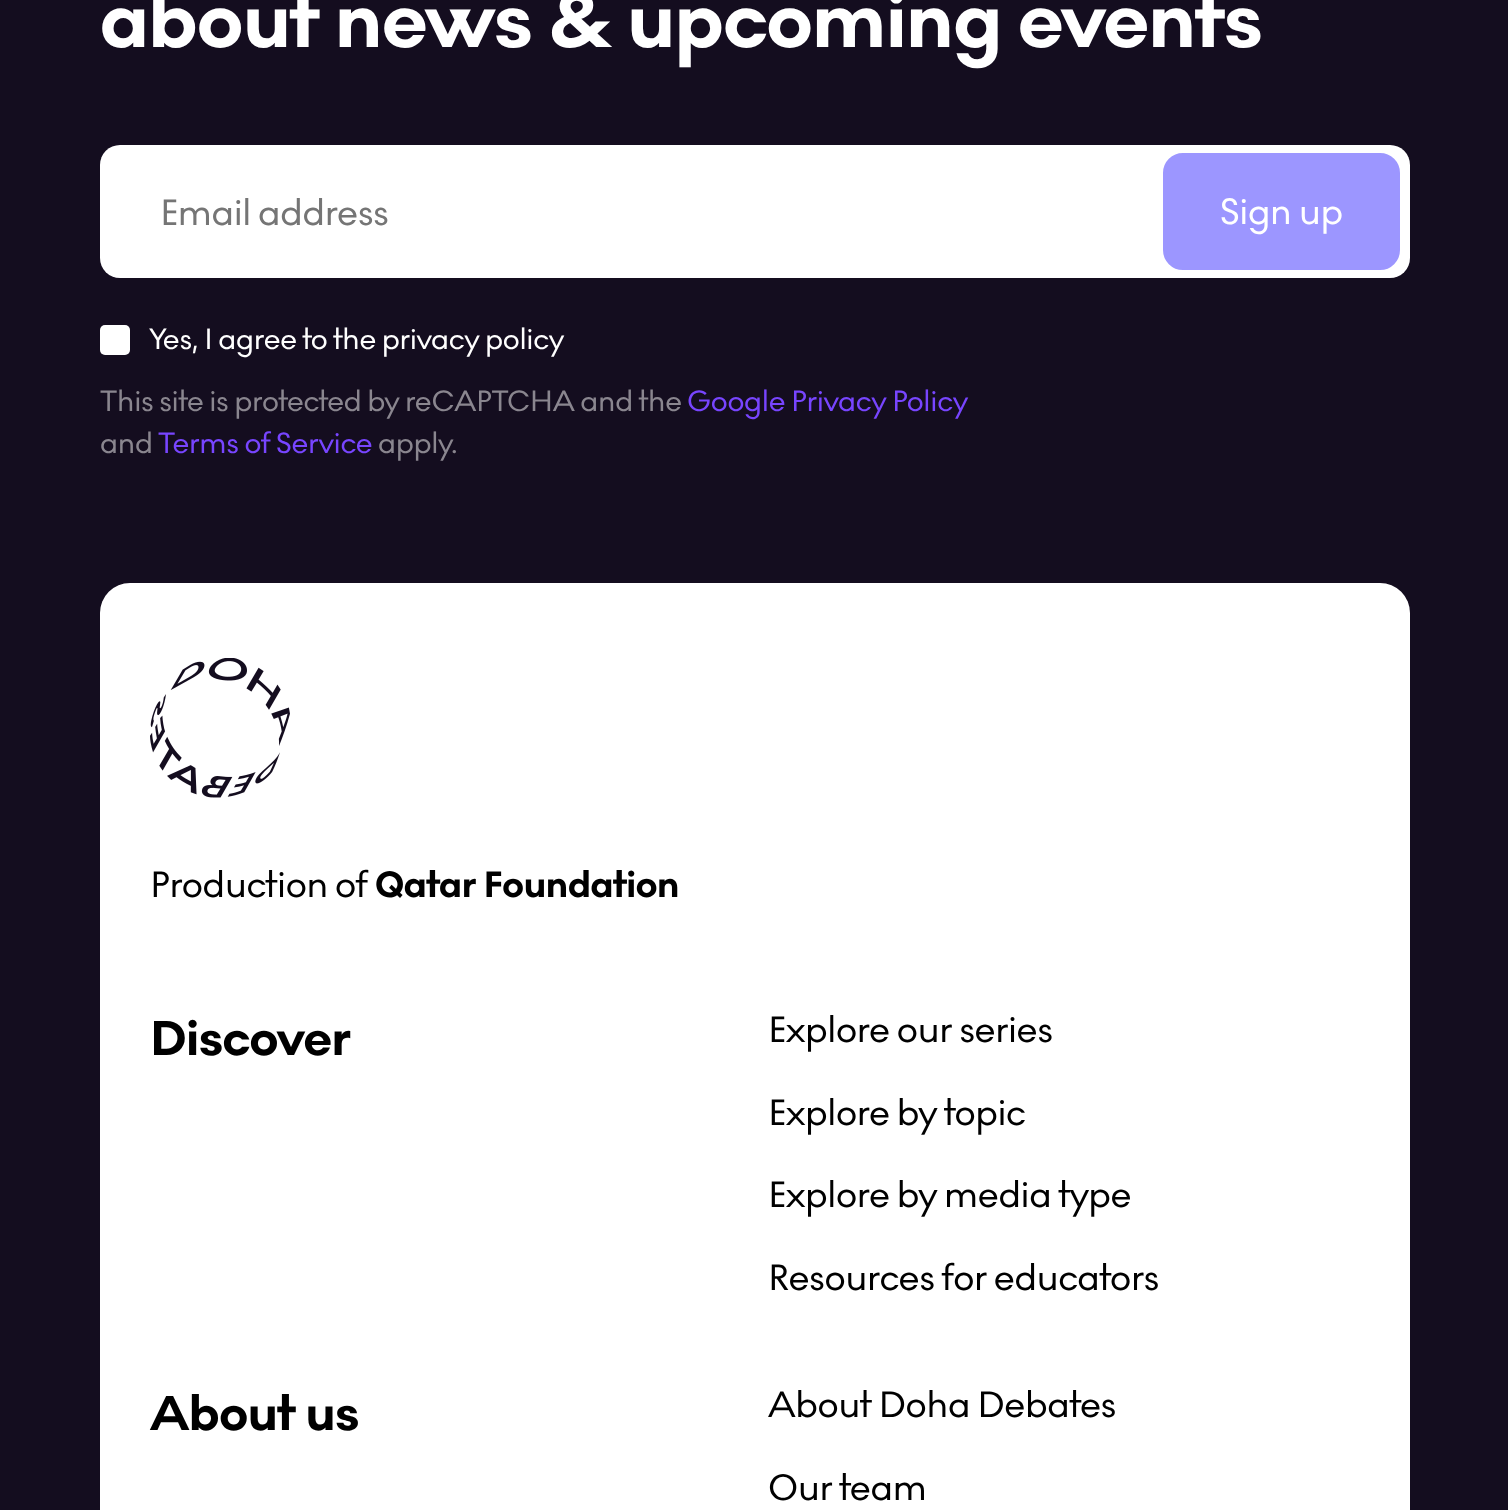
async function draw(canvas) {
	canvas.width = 1508;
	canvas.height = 1510;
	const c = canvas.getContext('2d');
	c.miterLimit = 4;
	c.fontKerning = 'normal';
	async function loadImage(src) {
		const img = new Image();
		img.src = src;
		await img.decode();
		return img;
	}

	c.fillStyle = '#140d1f';
	c.fillRect(0, 0, 1508, 1510);
	c.letterSpacing = '-0.8px';
	c.font = 'bold 80px "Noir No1"';
	c.fillStyle = '#fff';
	c.fillText('about news & upcoming events', 100, 47);
	c.beginPath();
	c.roundRect(100, 145, 1310, 133, 20);
	c.fill();
	c.letterSpacing = '-0.4px';
	c.font = '37.5px "Noir No1"';
	c.fillStyle = '#757575';
	c.fillText('Email address', 160, 225);
	c.fillStyle = '#9c96ff';
	c.beginPath();
	c.roundRect(1164.5, 154.5, 234, 114, 18.5);
	c.fill();
	c.strokeStyle = '#9c96ff';
	c.lineWidth = 3;
	c.stroke();
	c.fillStyle = '#fff';
	c.fillText('Sign up', 1220, 224);
	c.beginPath();
	c.roundRect(100, 325, 30, 30, 5);
	c.fill();
	c.letterSpacing = '-0.3px';
	c.font = '30px "Noir No1"';
	c.fillText('Yes, I agree to the privacy policy', 150, 349);
	c.fillStyle = '#8a868f';
	c.fillText('This site is protected by reCAPTCHA and the', 100, 411);
	c.fillStyle = '#7845ff';
	c.fillText('Google Privacy Policy', 687, 411);
	c.fillStyle = '#8a868f';
	c.fillText('and', 100, 453);
	c.fillStyle = '#7845ff';
	c.fillText('Terms of Service', 158, 453);
	c.fillStyle = '#8a868f';
	c.fillText('apply.', 378, 453);
	c.fillStyle = '#fff';
	c.beginPath();
	c.roundRect(100, 583, 1310, 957, 30);
	c.fill();
	c.drawImage(await loadImage('img1.png'), 150, 658, 140, 140);
	c.letterSpacing = '-0.4px';
	c.font = '37.5px "Noir No1"';
	c.fillStyle = '#000';
	c.fillText('Production of', 150, 897);
	c.font = 'bold 37.5px "Noir No1"';
	c.fillText('Qatar Foundation', 375, 897);
	c.letterSpacing = '-0.5px';
	c.font = 'bold 50px "Noir No1"';
	c.fillText('Discover', 150, 1055);
	c.letterSpacing = '-0.4px';
	c.font = '37.5px "Noir No1"';
	for (const [text, x, y] of [
		['Explore our series', 768, 1042],
		['Explore by topic', 768, 1125],
		['Explore by media type', 768, 1207],
		['Resources for educators', 768, 1290],
	]) {
		c.fillText(text, x, y);
	}
	c.letterSpacing = '-0.5px';
	c.font = 'bold 50px "Noir No1"';
	c.fillText('About us', 150, 1430);
	c.letterSpacing = '-0.4px';
	c.font = '37.5px "Noir No1"';
	c.fillText('About Doha Debates', 768, 1417);
	c.fillText('Our team', 768, 1500);
}

draw(document.querySelector('canvas'));
